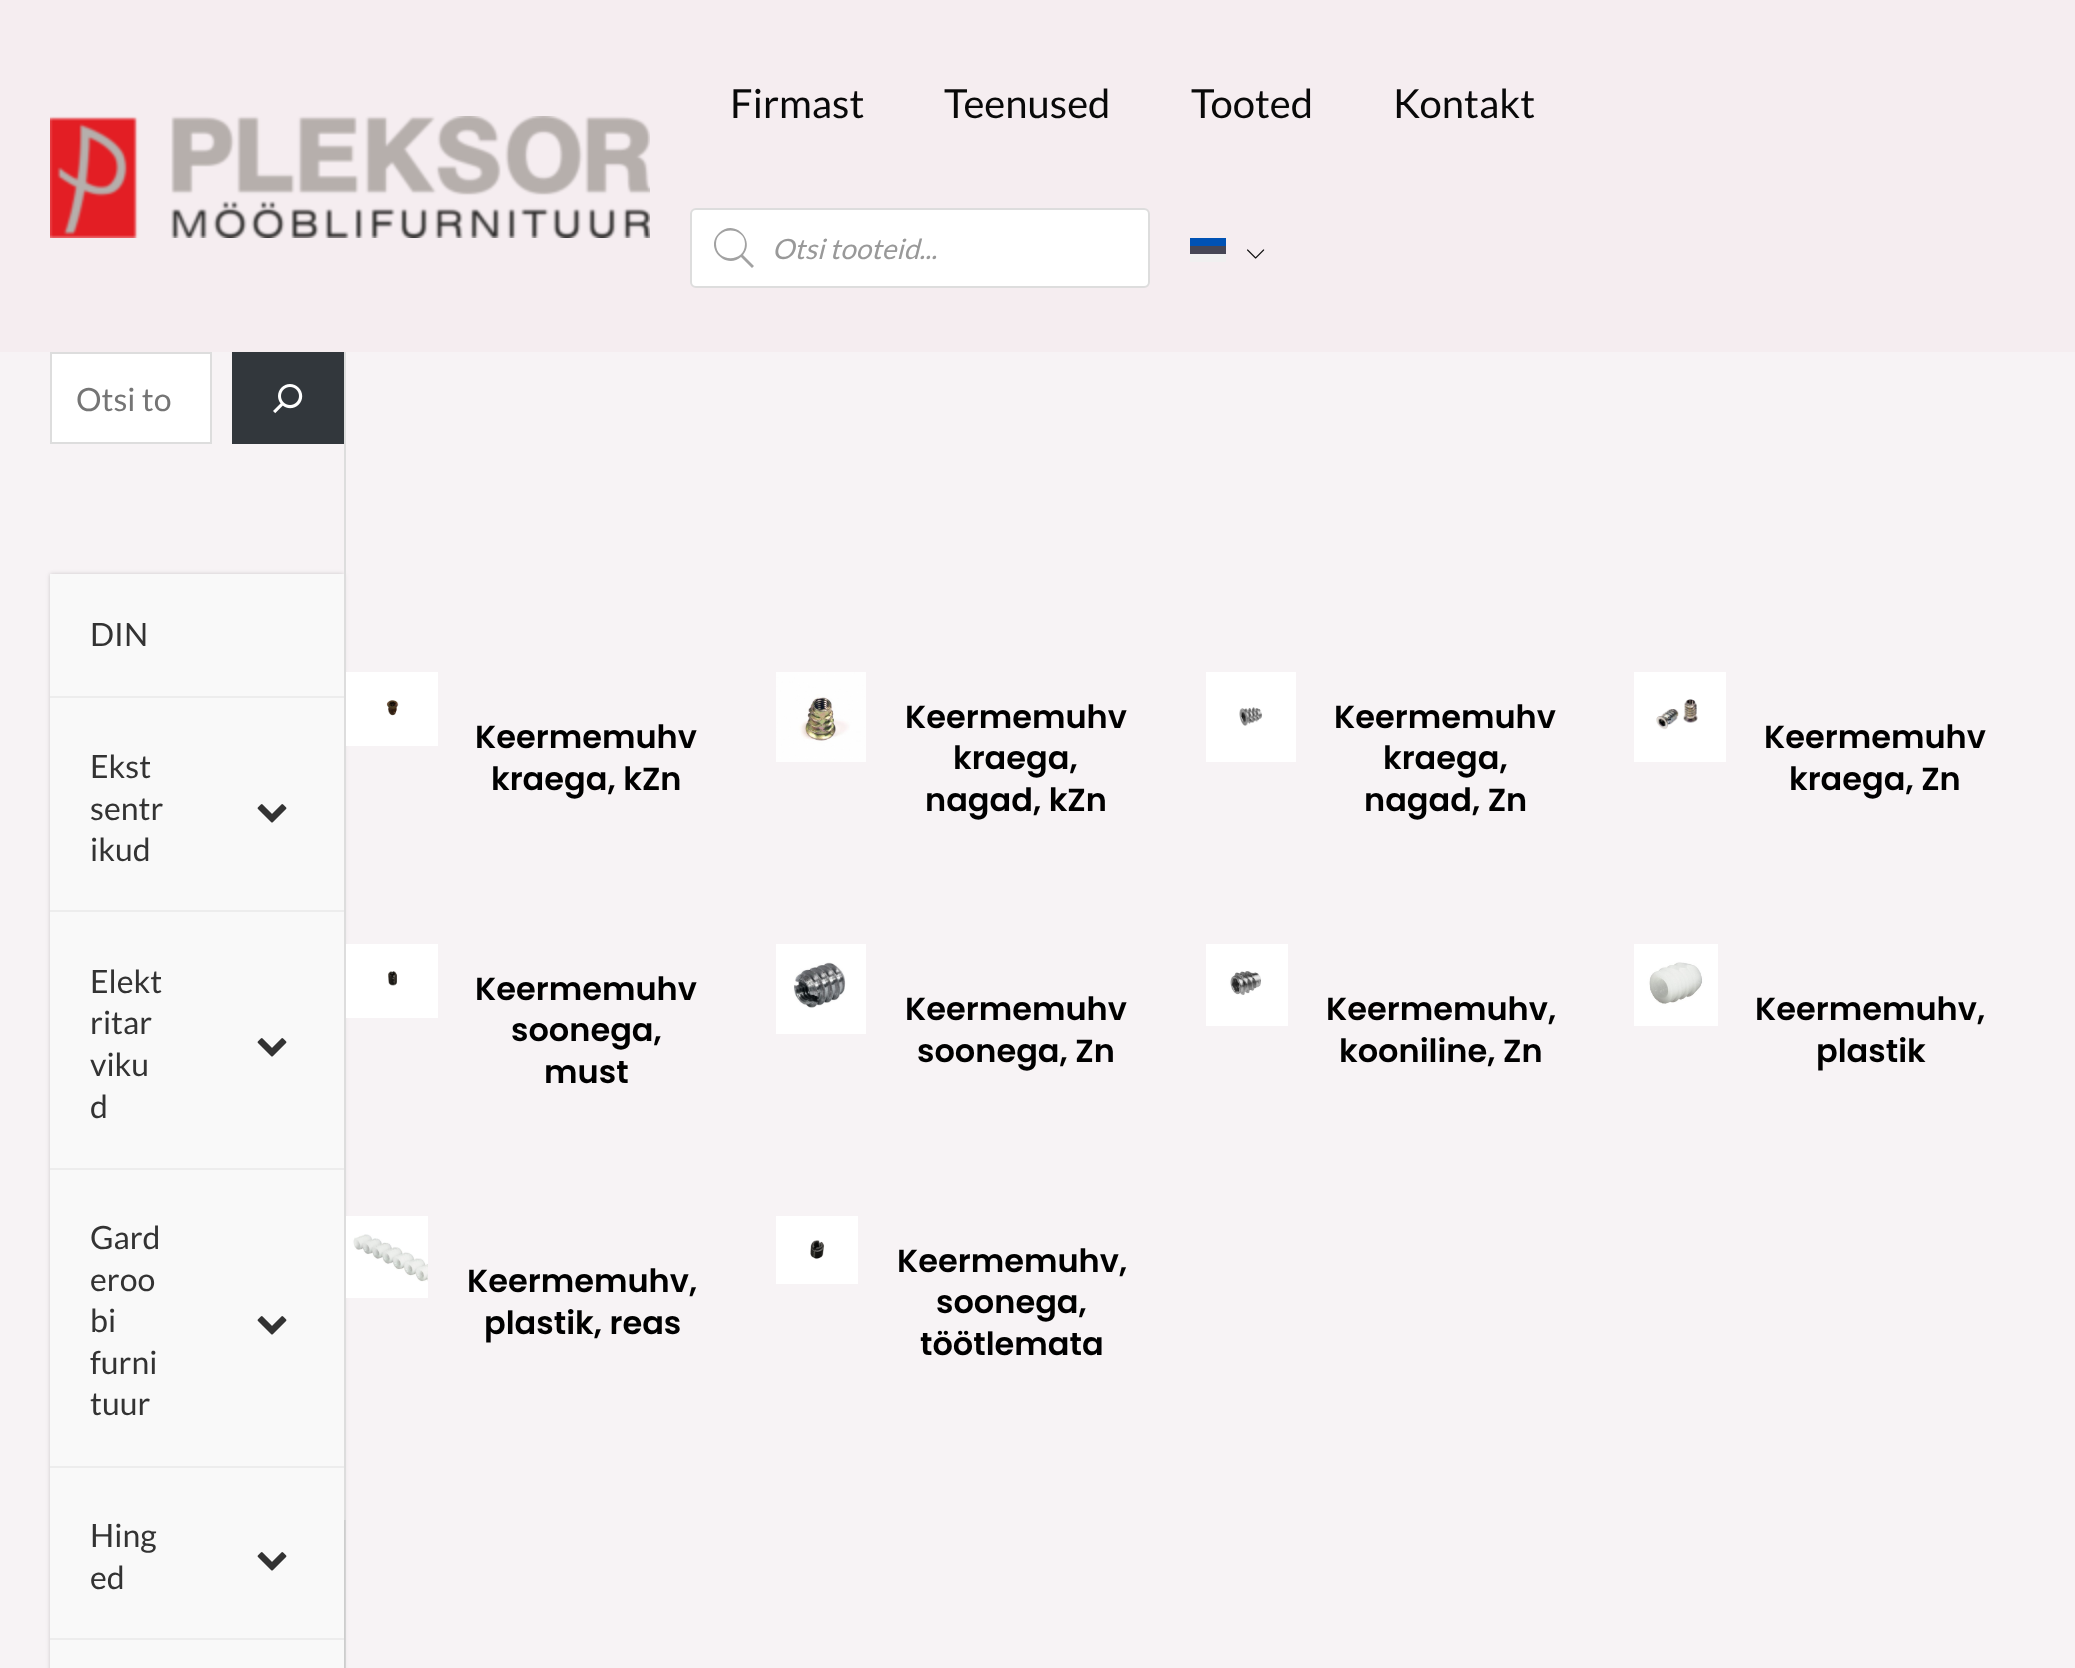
async function draw(canvas) {
	canvas.width = 2075;
	canvas.height = 1668;
	const c = canvas.getContext('2d');
	c.miterLimit = 4;
	c.fontKerning = 'normal';
	async function loadImage(src) {
		const img = new Image();
		img.src = src;
		await img.decode();
		return img;
	}

	c.fillStyle = '#f7f3f5';
	c.fillRect(0, 0, 2075, 1668);
	c.fillStyle = '#f5edf0';
	c.fillRect(0, 0, 2075, 352);
	c.drawImage(await loadImage('img1.png'), 50, 116, 600, 122);
	c.font = '40px Lato';
	c.fillStyle = '#090909';
	for (const [text, x, y] of [
		['Firmast', 730, 118],
		['Teenused', 944, 118],
		['Tooted', 1191, 118],
		['Kontakt', 1393, 118],
	]) {
		c.fillText(text, x, y);
	}
	c.fillStyle = '#fff';
	c.beginPath();
	c.roundRect(691, 209, 458, 78, 5);
	c.fill();
	c.strokeStyle = '#ddd';
	c.lineWidth = 2;
	c.stroke();
	c.fillStyle = '#a2a2a2';
	c.beginPath();
	c.moveTo(754, 266);
	c.lineTo(743, 255);
	c.bezierCurveTo(756, 240, 734, 218, 719, 233);
	c.bezierCurveTo(704, 248, 726, 270, 741, 257);
	c.lineTo(752, 268);
	c.closePath();
	c.moveTo(716, 244);
	c.bezierCurveTo(716, 226, 745, 226, 745, 244);
	c.bezierCurveTo(745, 263, 716, 263, 716, 244);
	c.closePath();
	c.fill();
	c.font = 'italic 28px Lato';
	c.fillStyle = '#999';
	c.fillText('Otsi tooteid...', 772, 259);
	c.fillStyle = '#0052b4';
	c.fillRect(1190, 238, 36, 8);
	c.fillStyle = '#464655';
	c.fillRect(1190, 246, 36, 8);
	c.drawImage(await loadImage('img2.png'), 1247, 249, 18, 10);
	c.fillStyle = '#f0f0f0';
	c.fillRect(1190, 254, 36, 8);
	c.fillStyle = '#ddd';
	c.fillRect(344, 1520, 2, 148);
	c.fillStyle = '#fff';
	c.beginPath();
	c.rect(51, 353, 160, 90);
	c.fill();
	c.stroke();
	c.font = '32px Lato';
	c.fillStyle = '#757575';
	c.fillText('Otsi to', 76, 411);
	c.fillStyle = '#32373c';
	c.fillRect(232, 352, 112, 92);
	c.drawImage(await loadImage('img3.png'), 273, 384, 30, 30);
	c.fillStyle = '#0000002b';
	c.filter = 'blur(2px)';
	c.beginPath();
	c.rect(50, 574, 294, 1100);
	c.fill();
	c.filter = 'none';
	c.fillStyle = '#f9f9f9';
	c.fillRect(50, 574, 294, 1094);
	c.fillStyle = '#ededed';
	c.fillRect(50, 696, 294, 2);
	c.fillStyle = '#333';
	c.fillText('DIN', 90, 646);
	c.fillStyle = '#ededed';
	c.fillRect(50, 910, 294, 2);
	c.fillStyle = '#333';
	for (const [text, x, y] of [
		['Ekst', 90, 778],
		['sentr', 90, 820],
		['ikud', 90, 861],
	]) {
		c.fillText(text, x, y);
	}
	c.drawImage(await loadImage('img4.png'), 257, 804, 30, 19);
	c.fillStyle = '#ededed';
	c.fillRect(50, 1168, 294, 2);
	c.fillStyle = '#333';
	for (const [text, x, y] of [
		['Elekt', 90, 993],
		['ritar', 90, 1034],
		['viku', 90, 1076],
		['d', 90, 1118],
	]) {
		c.fillText(text, x, y);
	}
	c.drawImage(await loadImage('img4.png'), 257, 1038, 30, 19);
	c.fillStyle = '#ededed';
	c.fillRect(50, 1466, 294, 2);
	c.fillStyle = '#333';
	for (const [text, x, y] of [
		['Gard', 90, 1249],
		['eroo', 90, 1291],
		['bi', 90, 1332],
		['furni', 90, 1374],
		['tuur', 90, 1415],
	]) {
		c.fillText(text, x, y);
	}
	c.drawImage(await loadImage('img4.png'), 257, 1316, 30, 19);
	c.fillStyle = '#ededed';
	c.fillRect(50, 1638, 294, 2);
	c.fillStyle = '#333';
	c.fillText('Hing', 90, 1547);
	c.fillText('ed', 90, 1589);
	c.drawImage(await loadImage('img4.png'), 257, 1552, 30, 19);
	c.fillStyle = '#ddd';
	c.fillRect(344, 352, 2, 1168);
	c.drawImage(await loadImage('img5.png'), 346, 672, 92, 74);
	c.font = '600 32px Poppins';
	c.fillStyle = '#000';
	c.fillText('Keermemuhv', 475, 748);
	c.fillText('kraega, kZn', 491, 790);
	c.drawImage(await loadImage('img6.png'), 776, 672, 90, 90);
	for (const [text, x, y] of [
		['Keermemuhv', 905, 728],
		['kraega,', 953, 769],
		['nagad, kZn', 925, 811],
	]) {
		c.fillText(text, x, y);
	}
	c.drawImage(await loadImage('img7.png'), 1206, 672, 90, 90);
	for (const [text, x, y] of [
		['Keermemuhv', 1334, 728],
		['kraega,', 1383, 769],
		['nagad, Zn', 1364, 811],
	]) {
		c.fillText(text, x, y);
	}
	c.drawImage(await loadImage('img8.png'), 1634, 672, 92, 90);
	c.fillText('Keermemuhv', 1764, 748);
	c.fillText('kraega, Zn', 1789, 790);
	c.drawImage(await loadImage('img9.png'), 346, 944, 92, 74);
	for (const [text, x, y] of [
		['Keermemuhv', 475, 1000],
		['soonega,', 511, 1041],
		['must', 544, 1083],
	]) {
		c.fillText(text, x, y);
	}
	c.drawImage(await loadImage('img10.png'), 776, 944, 90, 90);
	c.fillText('Keermemuhv', 905, 1020);
	c.fillText('soonega, Zn', 917, 1062);
	c.drawImage(await loadImage('img11.png'), 1206, 944, 82, 82);
	c.fillText('Keermemuhv,', 1326, 1020);
	c.fillText('kooniline, Zn', 1339, 1062);
	c.drawImage(await loadImage('img12.png'), 1634, 944, 84, 82);
	c.fillText('Keermemuhv,', 1755, 1020);
	c.fillText('plastik', 1816, 1062);
	c.drawImage(await loadImage('img13.png'), 346, 1216, 82, 82);
	c.fillText('Keermemuhv,', 467, 1292);
	c.fillText('plastik, reas', 484, 1334);
	c.drawImage(await loadImage('img14.png'), 776, 1216, 82, 68);
	for (const [text, x, y] of [
		['Keermemuhv,', 897, 1272],
		['soonega,', 936, 1313],
		['töötlemata', 920, 1355],
	]) {
		c.fillText(text, x, y);
	}
}

draw(document.querySelector('canvas'));
